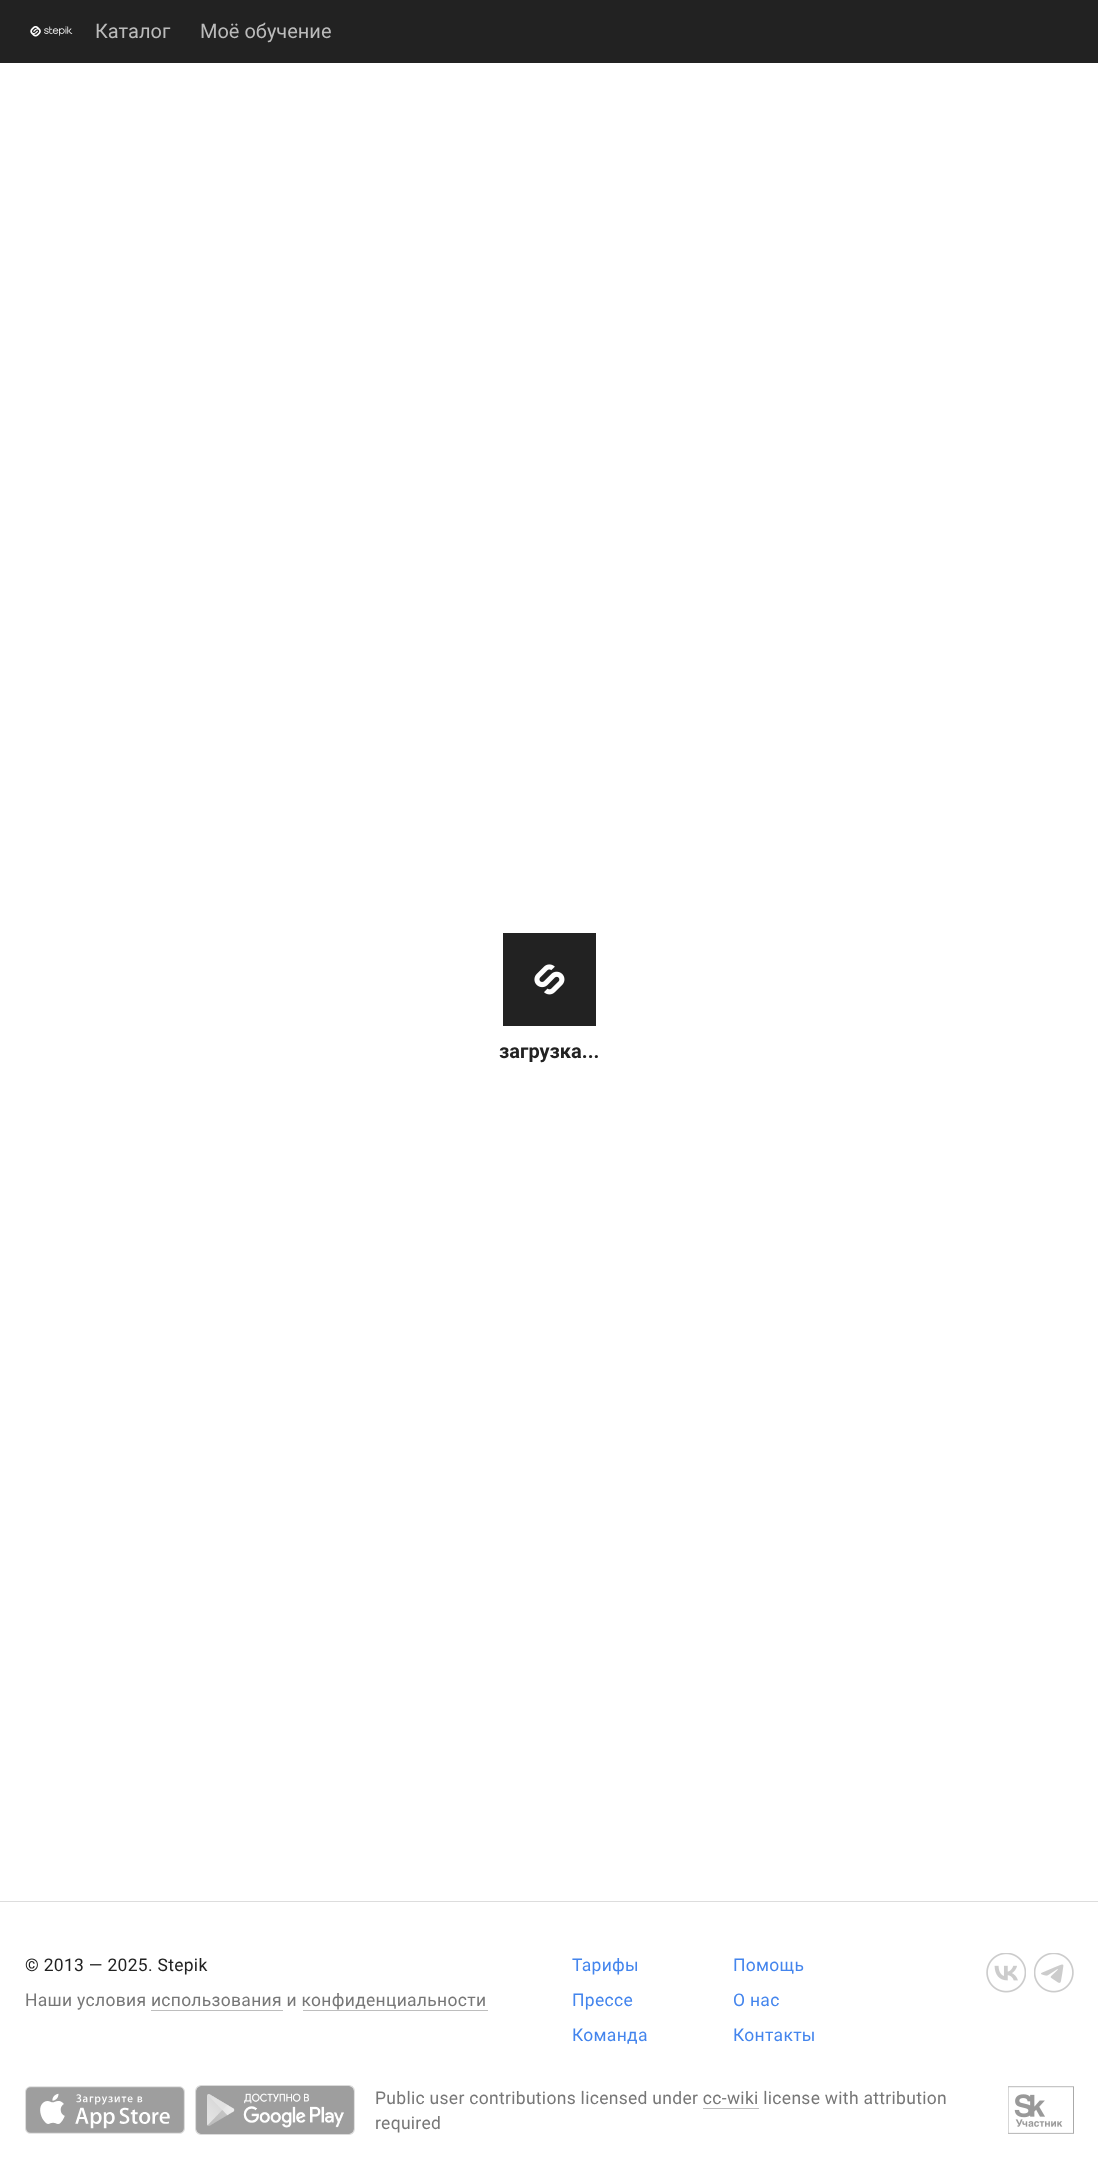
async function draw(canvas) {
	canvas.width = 1098;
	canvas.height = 2166;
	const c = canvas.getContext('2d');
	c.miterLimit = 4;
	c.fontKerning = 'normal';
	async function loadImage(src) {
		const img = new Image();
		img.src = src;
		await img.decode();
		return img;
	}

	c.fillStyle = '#fff';
	c.fillRect(0, 0, 1098, 2166);
	c.fillStyle = '#222';
	c.fillRect(0, 0, 1098, 63);
	c.drawImage(await loadImage('img1.png'), 30, 26, 43, 11);
	c.font = '20px Roboto';
	c.fillStyle = '#bbb';
	c.fillText('Каталог', 95, 38);
	c.fillText('Моё обучение', 200, 38);
	c.fillStyle = '#222';
	c.fillRect(503, 933, 93, 93);
	c.drawImage(await loadImage('img2.png'), 534, 964, 31, 31);
	c.font = 'bold 20px Roboto';
	c.fillText('загрузка...', 499, 1058);
	c.fillStyle = '#ddd';
	c.fillRect(0, 1901, 1098, 1);
	c.letterSpacing = '0.3px';
	c.font = '17.5px Roboto';
	c.fillStyle = '#222';
	c.fillText('© 2013 — 2025. Stepik', 25, 1971);
	c.fillStyle = '#777';
	c.fillText('Наши условия использования и конфиденциальности', 25, 2006);
	c.fillStyle = '#bdbdbd';
	c.fillRect(151, 2010, 132, 1);
	c.fillRect(303, 2010, 185, 1);
	c.fillStyle = '#4485ed';
	for (const [text, x, y] of [
		['Тарифы', 572, 1971],
		['Прессе', 572, 2006],
		['Команда', 572, 2041],
		['Помощь', 733, 1971],
		['О нас', 733, 2006],
		['Контакты', 733, 2041],
	]) {
		c.fillText(text, x, y);
	}
	c.drawImage(await loadImage('img3.png'), 986, 1953, 40, 40);
	c.drawImage(await loadImage('img4.png'), 1034, 1953, 40, 40);
	c.drawImage(await loadImage('img5.png'), 25, 2086, 160, 48);
	c.drawImage(await loadImage('img6.png'), 195, 2085, 160, 50);
	c.fillStyle = '#777';
	c.fillText('Public user contributions licensed under cc-wiki license with attribution', 375, 2104);
	c.fillStyle = '#bdbdbd';
	c.fillRect(703, 2108, 56, 1);
	c.fillStyle = '#777';
	c.fillText('required', 375, 2129);
	c.drawImage(await loadImage('img7.png'), 1008, 2086, 66, 48);
}

draw(document.querySelector('canvas'));
